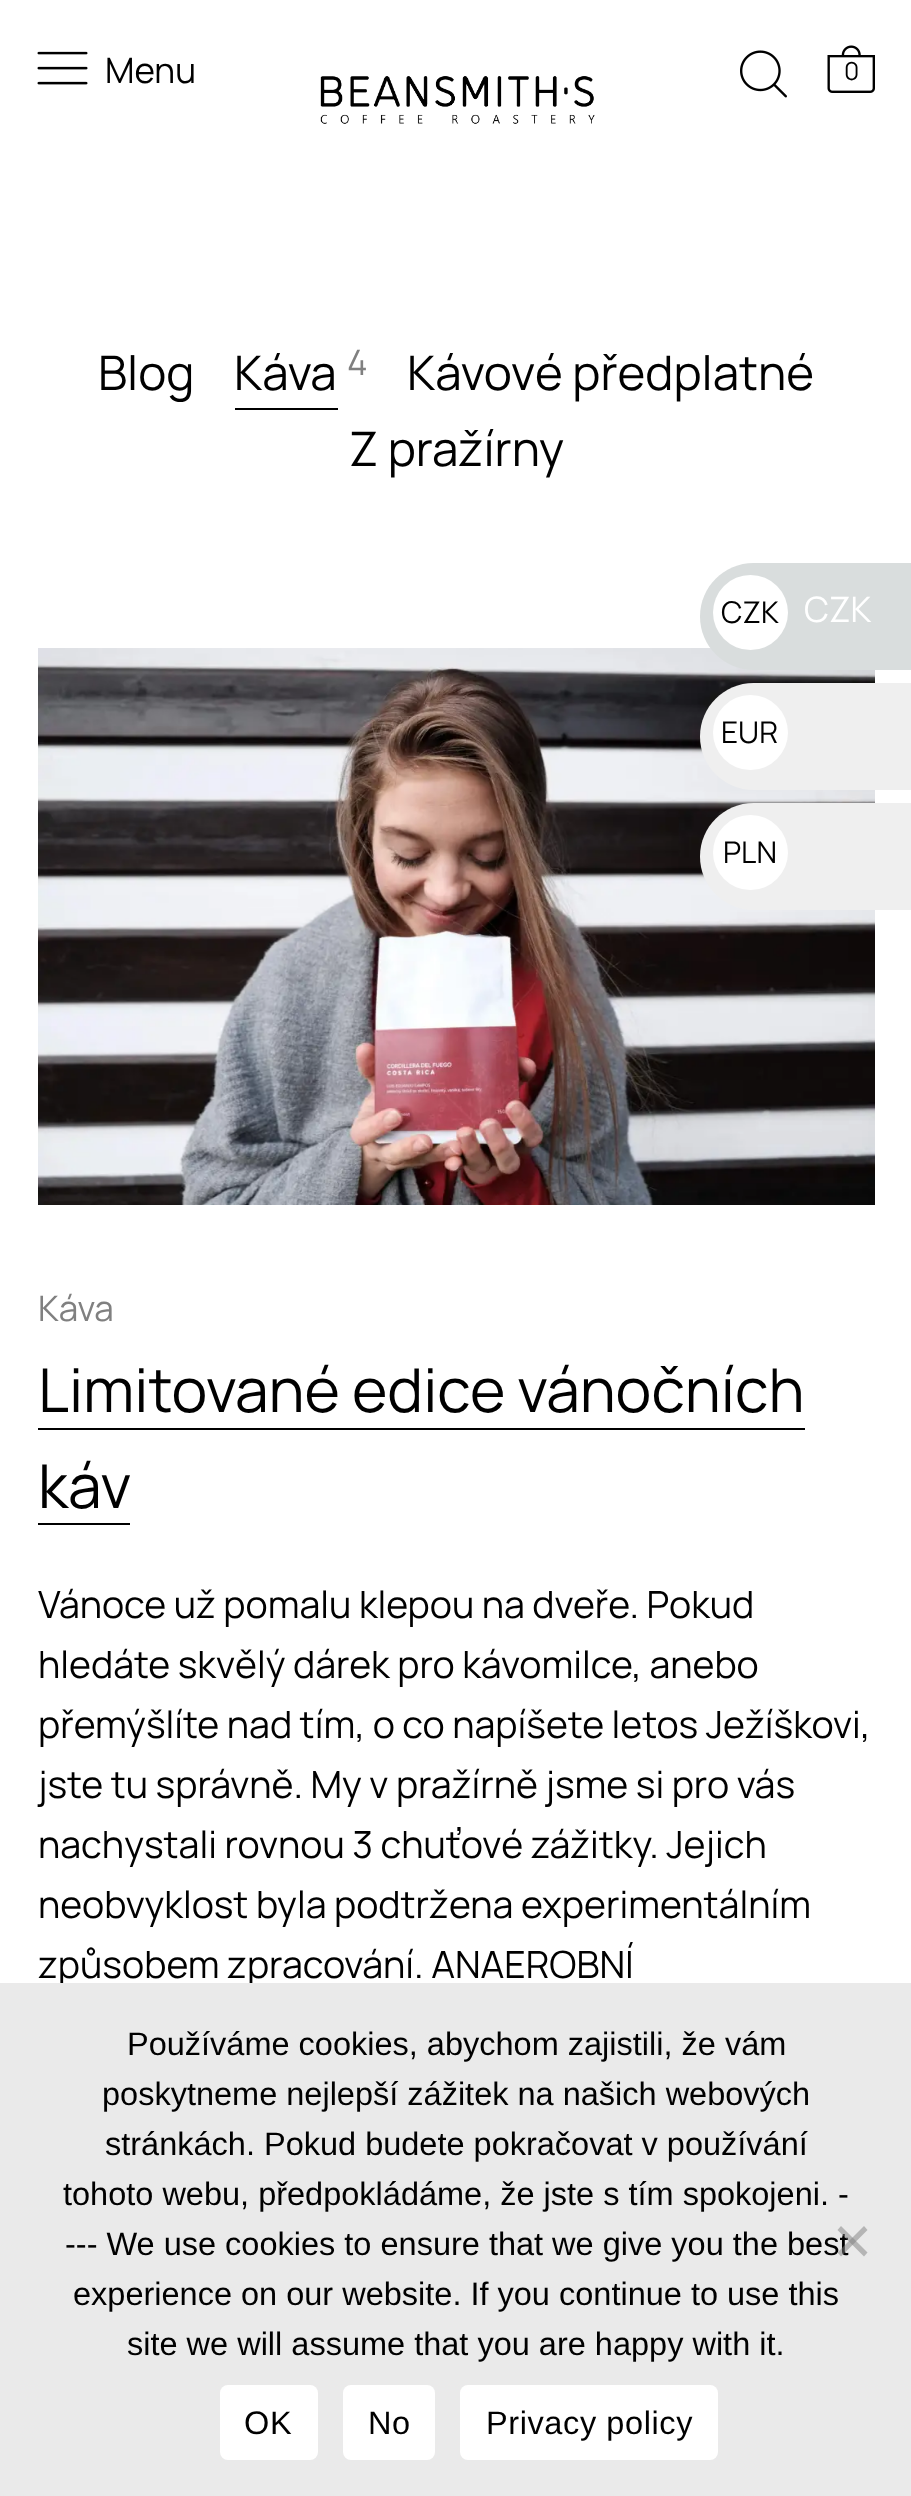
async function draw(canvas) {
	canvas.width = 911;
	canvas.height = 2496;
	const c = canvas.getContext('2d');
	c.miterLimit = 4;
	c.fontKerning = 'normal';
	async function loadImage(src) {
		const img = new Image();
		img.src = src;
		await img.decode();
		return img;
	}

	c.fillStyle = '#fff';
	c.fillRect(0, 0, 911, 2496);
	c.drawImage(await loadImage('img1.png'), 37, 51, 51, 34);
	c.font = '35px Manrope';
	c.fillStyle = '#000';
	c.fillText('Menu', 105, 83);
	c.drawImage(await loadImage('img2.png'), 740, 50, 47, 48);
	c.drawImage(await loadImage('img3.png'), 827, 45, 48, 48);
	c.font = '25px Manrope';
	c.fillText('0', 844, 80);
	c.drawImage(await loadImage('img4.png'), 320, 76, 275, 48);
	c.font = '47.5px Manrope';
	c.fillText('Blog', 98, 390);
	c.fillRect(235, 408, 103, 2);
	c.fillText('Káva', 234, 390);
	c.font = '35px Manrope';
	c.fillStyle = '#808080';
	c.fillText('4', 347, 375);
	c.font = '47.5px Manrope';
	c.fillStyle = '#000';
	c.fillText('Kávové předplatné', 407, 390);
	c.fillText('Z pražírny', 349, 466);
	c.drawImage(await loadImage('img5.png'), 38, 648, 837, 557);
	c.font = '35px Manrope';
	c.fillStyle = '#808080';
	c.fillText('Káva', 38, 1321);
	c.font = '60.5px Manrope';
	c.fillStyle = '#000';
	c.fillText('Limitované edice vánočních', 38, 1412);
	c.fillRect(38, 1428, 767, 2);
	c.fillText('káv', 38, 1508);
	c.fillRect(38, 1523, 92, 2);
	c.font = '37.5px Manrope';
	for (const [text, x, y] of [
		['Vánoce už pomalu klepou na dveře. Pokud', 38, 1618],
		['hledáte skvělý dárek pro kávomilce, anebo', 38, 1678],
		['přemýšlíte nad tím, o co napíšete letos Ježíškovi,', 38, 1738],
		['jste tu správně. My v pražírně jsme si pro vás', 38, 1798],
		['nachystali rovnou 3 chuťové zážitky. Jejich', 38, 1858],
		['neobvyklost byla podtržena experimentálním', 38, 1918],
		['způsobem zpracování. ANAEROBNÍ', 38, 1978],
	]) {
		c.fillText(text, x, y);
	}
	c.fillStyle = '#d9dddd';
	c.beginPath();
	c.moveTo(753.5, 563);
	c.lineTo(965, 563);
	c.lineTo(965, 670);
	c.lineTo(753.5, 670);
	c.bezierCurveTo(724, 670, 700, 646, 700, 616.5);
	c.bezierCurveTo(700, 587, 724, 563, 753.5, 563);
	c.closePath();
	c.fill();
	c.fillStyle = '#fff';
	c.beginPath();
	c.arc(750.5, 612.5, 37.5, 0, 2 * Math.PI);
	c.fill();
	c.font = '30px Manrope';
	c.fillStyle = '#000';
	c.fillText('CZK', 721, 623);
	c.font = '35px Manrope';
	c.fillStyle = '#fff';
	c.fillText('CZK', 804, 622);
	c.fillStyle = '#efefef';
	c.beginPath();
	c.moveTo(753.5, 683);
	c.lineTo(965, 683);
	c.lineTo(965, 790);
	c.lineTo(753.5, 790);
	c.bezierCurveTo(724, 790, 700, 766, 700, 736.5);
	c.bezierCurveTo(700, 707, 724, 683, 753.5, 683);
	c.closePath();
	c.fill();
	c.fillStyle = '#fff';
	c.beginPath();
	c.arc(750.5, 732.5, 37.5, 0, 2 * Math.PI);
	c.fill();
	c.font = '30px Manrope';
	c.fillStyle = '#000';
	c.fillText('EUR', 721, 743);
	c.fillStyle = '#efefef';
	c.beginPath();
	c.moveTo(753.5, 803);
	c.lineTo(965, 803);
	c.lineTo(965, 910);
	c.lineTo(753.5, 910);
	c.bezierCurveTo(724, 910, 700, 886, 700, 856.5);
	c.bezierCurveTo(700, 827, 724, 803, 753.5, 803);
	c.closePath();
	c.fill();
	c.fillStyle = '#fff';
	c.beginPath();
	c.arc(750.5, 852.5, 37.5, 0, 2 * Math.PI);
	c.fill();
	c.fillStyle = '#000';
	c.fillText('PLN', 723, 863);
	c.fillStyle = '#eaeaea';
	c.fillRect(0, 1983, 911, 513);
	c.font = '32.5px Liberation Sans';
	c.fillStyle = '#000';
	for (const [text, x, y] of [
		['Používáme cookies, abychom zajistili, že vám', 127, 2055],
		['poskytneme nejlepší zážitek na našich webových', 102, 2105],
		['stránkách. Pokud budete pokračovat v používání', 105, 2155],
		['tohoto webu, předpokládáme, že jste s tím spokojeni. -', 63, 2205],
		['--- We use cookies to ensure that we give you the best', 65, 2255],
		['experience on our website. If you continue to use this', 73, 2305],
		['site we will assume that you are happy with it.', 127, 2355],
	]) {
		c.fillText(text, x, y);
	}
	c.fillStyle = '#80808080';
	c.beginPath();
	c.moveTo(864, 2226);
	c.lineTo(867.5, 2230);
	c.lineTo(841, 2256.5);
	c.lineTo(837.5, 2252.5);
	c.closePath();
	c.fill();
	c.beginPath();
	c.moveTo(837.5, 2230);
	c.lineTo(841, 2226);
	c.lineTo(867.5, 2252.5);
	c.lineTo(864, 2256.5);
	c.closePath();
	c.fill();
	c.fillStyle = '#fff';
	c.beginPath();
	c.roundRect(220, 2385, 98, 75, 8);
	c.fill();
	c.letterSpacing = '0.6px';
	c.fillStyle = '#000';
	c.fillText('OK', 244, 2434);
	c.fillStyle = '#fff';
	c.beginPath();
	c.roundRect(343, 2385, 92, 75, 8);
	c.fill();
	c.fillStyle = '#000';
	c.fillText('No', 368, 2434);
	c.fillStyle = '#fff';
	c.beginPath();
	c.roundRect(460, 2385, 258, 75, 8);
	c.fill();
	c.fillStyle = '#000';
	c.fillText('Privacy policy', 486, 2434);
}

draw(document.querySelector('canvas'));
